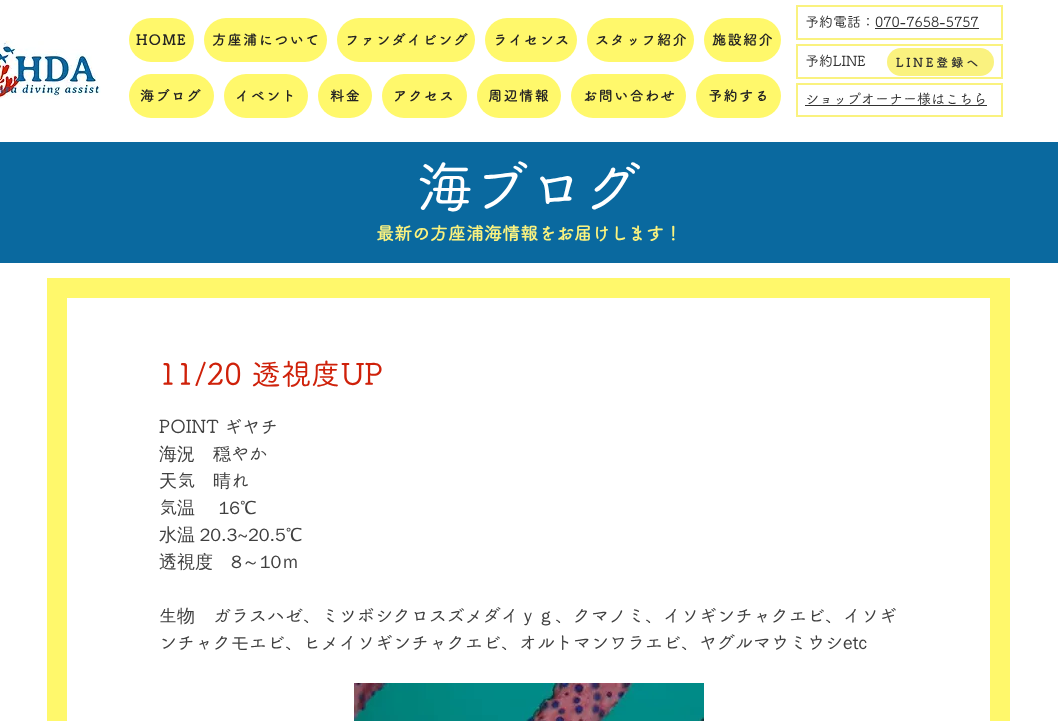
async function draw(canvas) {
	canvas.width = 1058;
	canvas.height = 721;
	const c = canvas.getContext('2d');
	c.miterLimit = 4;
	c.fontKerning = 'normal';
	async function loadImage(src) {
		const img = new Image();
		img.src = src;
		await img.decode();
		return img;
	}

	c.fillStyle = '#fff';
	c.fillRect(0, 0, 1058, 721);
	c.strokeStyle = '#faf27f';
	c.lineWidth = 2;
	c.strokeRect(797, 6, 205, 33);
	c.font = '500 14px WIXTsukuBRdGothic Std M';
	c.fillStyle = '#323232';
	c.fillText('予約電話：070-7658-5757', 805, 27);
	c.fillRect(875, 28, 104, 1);
	c.drawImage(await loadImage('img1.png'), 0, 40, 101, 59);
	c.fillStyle = '#fff86b';
	c.beginPath();
	c.roundRect(129, 18, 65, 44, 22);
	c.fill();
	c.letterSpacing = '1.5px';
	c.font = 'bold 14px WIXTsukuBRdGothic Std M';
	c.fillStyle = '#242323';
	c.fillText('HOME', 136, 45);
	c.fillStyle = '#fff86b';
	c.beginPath();
	c.roundRect(204, 18, 123, 44, 22);
	c.fill();
	c.fillStyle = '#242323';
	c.fillText('方座浦について', 212, 45);
	c.fillStyle = '#fff86b';
	c.beginPath();
	c.roundRect(337, 18, 138, 44, 22);
	c.fill();
	c.fillStyle = '#242323';
	c.fillText('ファンダイビング', 345, 45);
	c.fillStyle = '#fff86b';
	c.beginPath();
	c.roundRect(485, 18, 92, 44, 22);
	c.fill();
	c.fillStyle = '#242323';
	c.fillText('ライセンス', 493, 45);
	c.fillStyle = '#fff86b';
	c.beginPath();
	c.roundRect(587, 18, 107, 44, 22);
	c.fill();
	c.fillStyle = '#242323';
	c.fillText('スタッフ紹介', 595, 45);
	c.fillStyle = '#fff86b';
	c.beginPath();
	c.roundRect(704, 18, 77, 44, 22);
	c.fill();
	c.fillStyle = '#242323';
	c.fillText('施設紹介', 712, 45);
	c.fillStyle = '#fff86b';
	c.beginPath();
	c.roundRect(129, 74, 85, 44, 22);
	c.fill();
	c.fillStyle = '#242323';
	c.fillText('海ブログ', 140, 101);
	c.fillStyle = '#fff86b';
	c.beginPath();
	c.roundRect(224, 74, 84, 44, 22);
	c.fill();
	c.fillStyle = '#242323';
	c.fillText('イベント', 235, 101);
	c.fillStyle = '#fff86b';
	c.beginPath();
	c.roundRect(318, 74, 54, 44, 22);
	c.fill();
	c.fillStyle = '#242323';
	c.fillText('料金', 330, 101);
	c.fillStyle = '#fff86b';
	c.beginPath();
	c.roundRect(382, 74, 85, 44, 22);
	c.fill();
	c.fillStyle = '#242323';
	c.fillText('アクセス', 393, 101);
	c.fillStyle = '#fff86b';
	c.beginPath();
	c.roundRect(477, 74, 84, 44, 22);
	c.fill();
	c.fillStyle = '#242323';
	c.fillText('周辺情報', 488, 101);
	c.fillStyle = '#fff86b';
	c.beginPath();
	c.roundRect(571, 74, 115, 44, 22);
	c.fill();
	c.fillStyle = '#242323';
	c.fillText('お問い合わせ', 583, 101);
	c.fillStyle = '#fff86b';
	c.beginPath();
	c.roundRect(696, 74, 85, 44, 22);
	c.fill();
	c.fillStyle = '#242323';
	c.fillText('予約する', 708, 101);
	c.strokeRect(797, 45, 205, 33);
	c.letterSpacing = '0px';
	c.font = '500 14px WIXTsukuBRdGothic Std M';
	c.fillStyle = '#323232';
	c.fillText('予約LINE', 805, 66);
	c.fillStyle = '#faf27f';
	c.beginPath();
	c.roundRect(887, 48, 107, 28, 14);
	c.fill();
	c.letterSpacing = '3px';
	c.font = 'bold 12px WIXTsukuBRdGothic Std M';
	c.fillStyle = '#323232';
	c.fillText('LINE登録へ', 896, 67);
	c.strokeRect(797, 84, 205, 32);
	c.letterSpacing = '0px';
	c.font = '500 14px WIXTsukuBRdGothic Std M';
	c.fillText('ショップオーナー様はこちら', 805, 104);
	c.fillRect(805, 105, 182, 1);
	c.fillStyle = '#0a699f';
	c.fillRect(0, 142, 1058, 121);
	c.font = '500 56px WIXTsukuBRdGothic Std M';
	c.fillStyle = '#fff';
	c.fillText('海ブログ', 417, 208);
	c.font = 'bold 18px WIXTsukuBRdGothic Std M';
	c.fillStyle = '#faf27f';
	c.fillText('最新の方座浦海情報をお届けします！', 376, 240);
	c.fillStyle = '#fff86b';
	c.fillRect(47, 278, 963, 443);
	c.fillStyle = '#fff';
	c.fillRect(67, 298, 923, 423);
	c.font = '500 30px WIXTsukuBRdGothic Std M';
	c.fillStyle = '#cf210a';
	c.fillText('11/20 透視度UP', 159, 385);
	c.font = '500 18px WIXTsukuBRdGothic Std M';
	c.fillStyle = '#404040';
	c.fillText('POINT ギヤチ', 159, 433);
	c.font = '500 18px WenQuanYi Zen Hei';
	c.fillText('海況　穏', 159, 460);
	c.font = '500 18px WIXTsukuBRdGothic Std M';
	c.fillText('やか', 231, 460);
	c.font = '500 18px WenQuanYi Zen Hei';
	c.fillText('天', 159, 487);
	c.font = '500 18px WIXTsukuBRdGothic Std M';
	c.fillText('気', 177, 487);
	c.font = '500 18px WenQuanYi Zen Hei';
	c.fillText('晴', 213, 487);
	c.font = '500 18px WIXTsukuBRdGothic Std M';
	c.fillText('れ', 231, 487);
	c.fillText('気', 159, 514);
	c.font = '500 18px WenQuanYi Zen Hei';
	c.fillText('温 　16℃', 177, 514);
	c.wordSpacing = '-1px';
	c.fillText('水温 20.3~20.5℃', 159, 541);
	c.wordSpacing = '0px';
	c.fillText('透視度　8～10ｍ', 159, 568);
	c.font = '500 18px WIXTsukuBRdGothic Std M';
	c.fillText('生', 159, 622);
	c.font = '500 18px WenQuanYi Zen Hei';
	c.fillText('物', 177, 622);
	c.font = '500 18px WIXTsukuBRdGothic Std M';
	c.fillText('ガラスハゼ、ミツボシクロスズメダイ', 213, 622);
	c.font = '500 18px WenQuanYi Zen Hei';
	c.fillText('ｙｇ', 519, 622);
	c.font = '500 18px WIXTsukuBRdGothic Std M';
	c.fillText('、クマノミ、イソギンチャクエビ、イソギ', 555, 622);
	c.fillText('ンチャク', 159, 649);
	c.font = '500 18px WenQuanYi Zen Hei';
	c.fillText('モ', 231, 649);
	c.font = '500 18px WIXTsukuBRdGothic Std M';
	c.fillText('エビ、ヒメイソギンチャクエビ、オルトマンワラエビ、ヤグルマウミウシ', 249, 649);
	c.font = '500 18px WenQuanYi Zen Hei';
	c.fillText('etc', 843, 649);
	c.drawImage(await loadImage('img2.png'), 354, 683, 350, 38);
}

draw(document.querySelector('canvas'));
